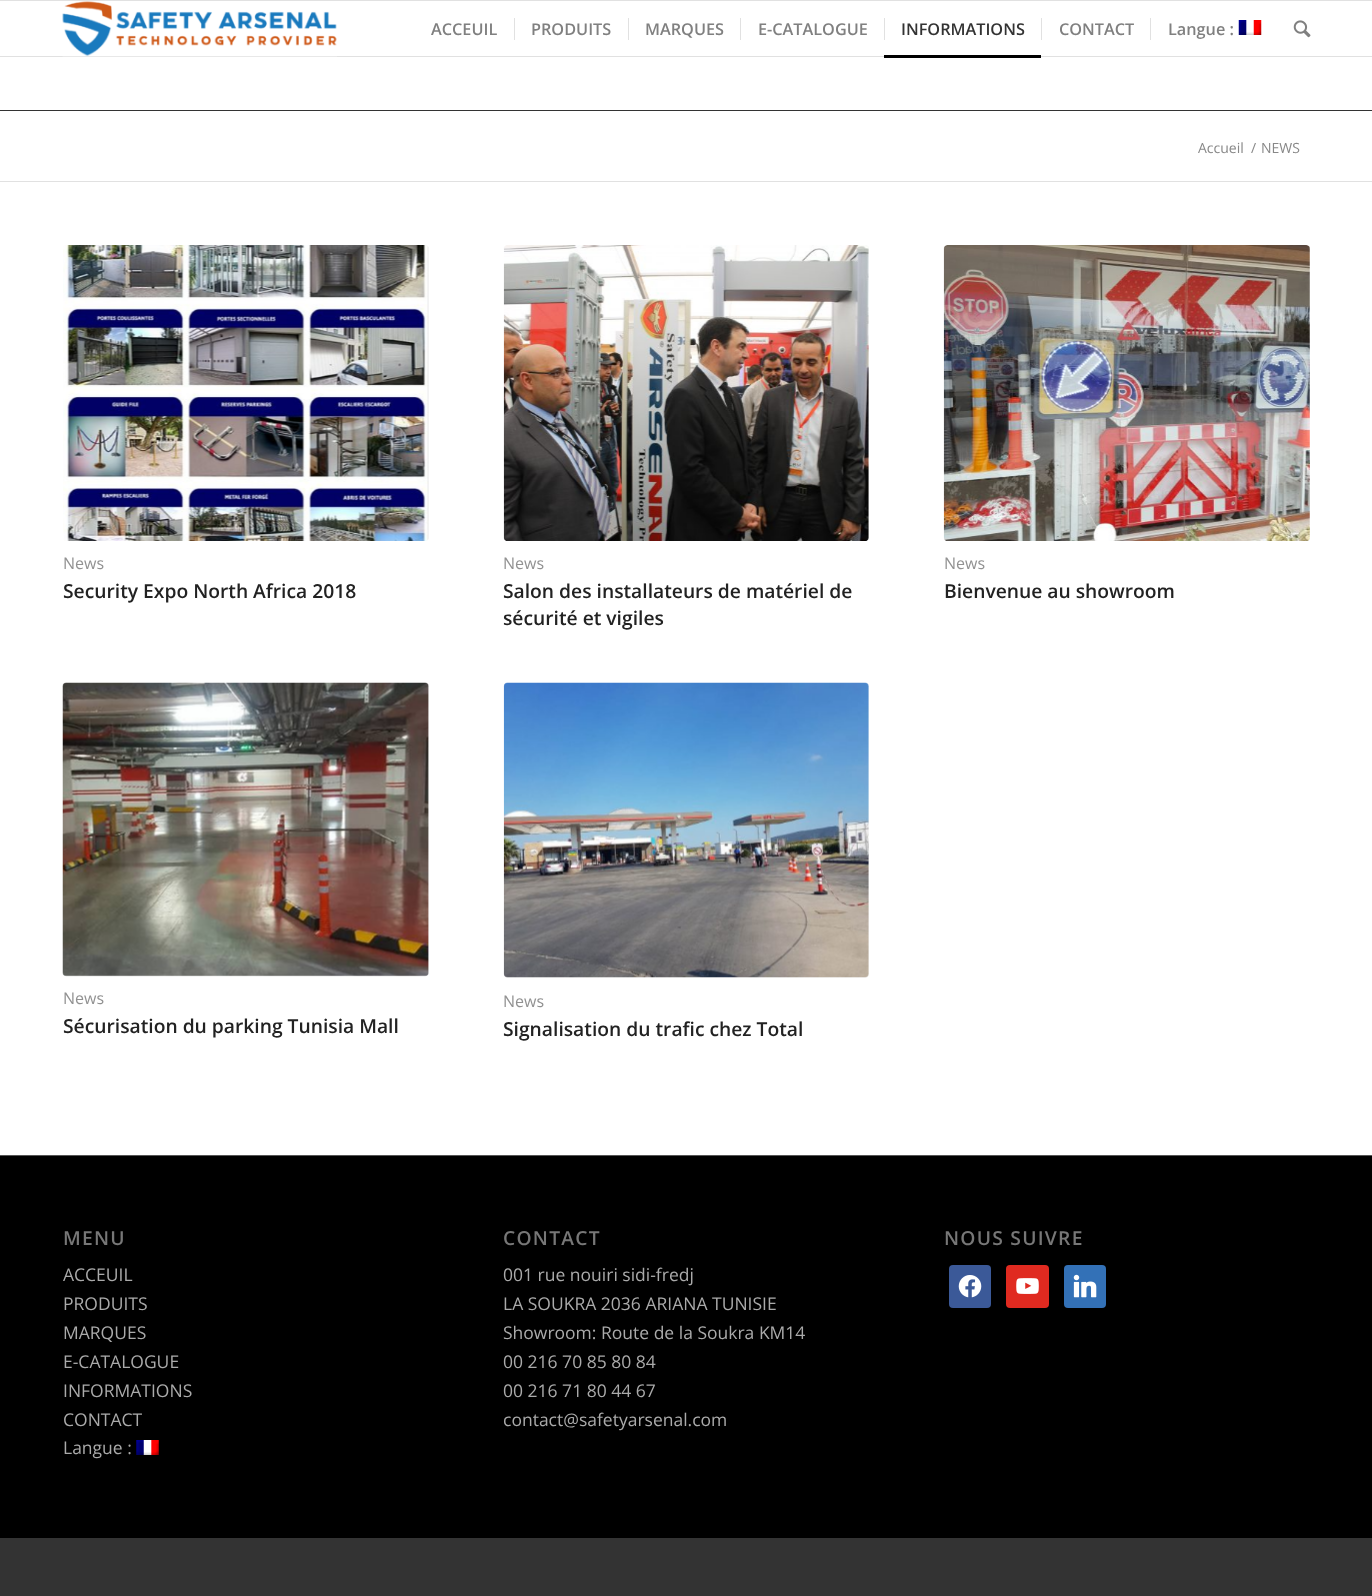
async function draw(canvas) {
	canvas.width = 1372;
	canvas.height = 1596;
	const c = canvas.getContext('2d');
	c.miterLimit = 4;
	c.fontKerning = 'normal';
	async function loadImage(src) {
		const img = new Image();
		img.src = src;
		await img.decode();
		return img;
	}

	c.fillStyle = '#333';
	c.fillRect(0, 0, 1372, 1596);
	for (const [x, y, w, h, color] of [
		[0, 0, 1372, 1, '#e1e1e1'],
		[0, 1, 1372, 1154, '#fff'],
		[0, 56, 1372, 1, '#e1e1e1'],
	]) {
		c.fillStyle = color;
		c.fillRect(x, y, w, h);
	}
	c.drawImage(await loadImage('img1.png'), 62, 1, 275, 56);
	c.font = '600 16.25px Open Sans';
	c.fillStyle = '#808080';
	c.fillText('ACCEUIL', 431, 35);
	c.fillText('PRODUITS', 531, 35);
	c.fillStyle = '#e1e1e1';
	c.fillRect(514, 18, 1, 22);
	c.fillStyle = '#808080';
	c.fillText('MARQUES', 645, 35);
	c.fillStyle = '#e1e1e1';
	c.fillRect(628, 18, 1, 22);
	c.fillStyle = '#808080';
	c.fillText('E-CATALOGUE', 758, 35);
	c.fillStyle = '#e1e1e1';
	c.fillRect(740, 18, 1, 22);
	c.fillStyle = '#333';
	c.fillText('INFORMATIONS', 901, 35);
	c.fillStyle = '#e1e1e1';
	c.fillRect(884, 18, 1, 22);
	c.fillStyle = '#000';
	c.fillRect(884, 55, 157, 3);
	c.fillStyle = '#808080';
	c.fillText('CONTACT', 1059, 35);
	c.fillStyle = '#e1e1e1';
	c.fillRect(1041, 18, 1, 22);
	c.fillRect(1150, 18, 1, 22);
	c.fillStyle = '#808080';
	c.fillText('Langue :', 1168, 35);
	c.drawImage(await loadImage('img2.png'), 1238, 20, 24, 15);
	c.drawImage(await loadImage('img3.png'), 1293, 20, 18, 18);
	c.fillStyle = '#333';
	c.fillRect(0, 110, 1372, 1);
	c.font = '14px Open Sans';
	c.fillStyle = '#888';
	for (const [text, x, y] of [
		['Accueil', 1198, 153],
		['/', 1251, 153],
		['NEWS', 1261, 153],
	]) {
		c.fillText(text, x, y);
	}
	c.fillStyle = '#e1e1e1';
	c.fillRect(0, 181, 1372, 1);
	c.fillStyle = '#f8f8f8';
	c.beginPath();
	c.roundRect(63, 245, 366, 296, 4);
	c.fill();
	c.drawImage(await loadImage('img4.png'), 63, 245, 366, 296);
	c.font = '16px Open Sans';
	c.fillStyle = '#919191';
	c.fillText('News', 63, 569);
	c.font = '600 19.25px Open Sans';
	c.fillStyle = '#222';
	c.fillText('Security Expo North Africa 2018', 63, 598);
	c.fillStyle = '#f8f8f8';
	c.beginPath();
	c.roundRect(504, 245, 365, 296, 4);
	c.fill();
	c.drawImage(await loadImage('img5.png'), 503, 245, 366, 296);
	c.font = '16px Open Sans';
	c.fillStyle = '#919191';
	c.fillText('News', 503, 569);
	c.font = '600 19.25px Open Sans';
	c.fillStyle = '#222';
	c.fillText('Salon des installateurs de matériel de', 503, 598);
	c.fillText('sécurité et vigiles', 503, 625);
	c.drawImage(await loadImage('img6.png'), 943, 245, 367, 296);
	c.font = '16px Open Sans';
	c.fillStyle = '#919191';
	c.fillText('News', 944, 569);
	c.font = '600 19.25px Open Sans';
	c.fillStyle = '#222';
	c.fillText('Bienvenue au showroom', 944, 598);
	c.fillStyle = '#f8f8f8';
	c.beginPath();
	c.roundRect(63, 683, 366, 293, 4);
	c.fill();
	c.drawImage(await loadImage('img7.png'), 62, 682, 367, 295);
	c.font = '16px Open Sans';
	c.fillStyle = '#919191';
	c.fillText('News', 63, 1004);
	c.font = '600 19.25px Open Sans';
	c.fillStyle = '#222';
	c.fillText('Sécurisation du parking Tunisia Mall', 63, 1033);
	c.fillStyle = '#f8f8f8';
	c.beginPath();
	c.roundRect(504, 683, 365, 295, 4);
	c.fill();
	c.drawImage(await loadImage('img8.png'), 503, 682, 366, 296);
	c.font = '16px Open Sans';
	c.fillStyle = '#919191';
	c.fillText('News', 503, 1007);
	c.font = '600 19.25px Open Sans';
	c.fillStyle = '#222';
	c.fillText('Signalisation du trafic chez Total', 503, 1036);
	c.fillStyle = '#000';
	c.fillRect(0, 1156, 1372, 382);
	c.fillStyle = '#555';
	c.fillRect(0, 1155, 1372, 1);
	c.letterSpacing = '1.25px';
	c.fillStyle = '#777';
	c.fillText('MENU', 63, 1245);
	c.letterSpacing = '0px';
	c.font = '17.5px Open Sans';
	c.fillStyle = '#aaa';
	for (const [text, x, y] of [
		['ACCEUIL', 63, 1281],
		['PRODUITS', 63, 1310],
		['MARQUES', 63, 1339],
		['E-CATALOGUE', 63, 1368],
		['INFORMATIONS', 63, 1397],
		['CONTACT', 63, 1426],
		['Langue :', 63, 1454],
	]) {
		c.fillText(text, x, y);
	}
	c.drawImage(await loadImage('img9.png'), 136, 1440, 23, 15);
	c.letterSpacing = '1.25px';
	c.font = '600 19.25px Open Sans';
	c.fillStyle = '#777';
	c.fillText('CONTACT', 503, 1245);
	c.letterSpacing = '0px';
	c.font = '17.5px Open Sans';
	c.fillStyle = '#aaa';
	for (const [text, x, y] of [
		['001 rue nouiri sidi-fredj', 503, 1281],
		['LA SOUKRA 2036 ARIANA TUNISIE', 503, 1310],
		['Showroom: Route de la Soukra KM14', 503, 1339],
		['00 216 70 85 80 84', 503, 1368],
		['00 216 71 80 44 67', 503, 1397],
		['contact@safetyarsenal.com', 503, 1426],
	]) {
		c.fillText(text, x, y);
	}
	c.letterSpacing = '1.25px';
	c.font = '600 19.25px Open Sans';
	c.fillStyle = '#777';
	c.fillText('NOUS SUIVRE', 944, 1245);
	c.fillStyle = '#3b5998';
	c.beginPath();
	c.roundRect(949, 1265, 42, 43, 4);
	c.fill();
	c.drawImage(await loadImage('img10.png'), 958, 1275, 24, 23);
	c.fillStyle = '#e02a20';
	c.beginPath();
	c.roundRect(1006, 1265, 43, 43, 4);
	c.fill();
	c.drawImage(await loadImage('img11.png'), 1016, 1278, 23, 16);
	c.fillStyle = '#3371b7';
	c.beginPath();
	c.roundRect(1064, 1265, 42, 43, 4);
	c.fill();
	c.drawImage(await loadImage('img12.png'), 1073, 1274, 24, 24);
}

draw(document.querySelector('canvas'));
